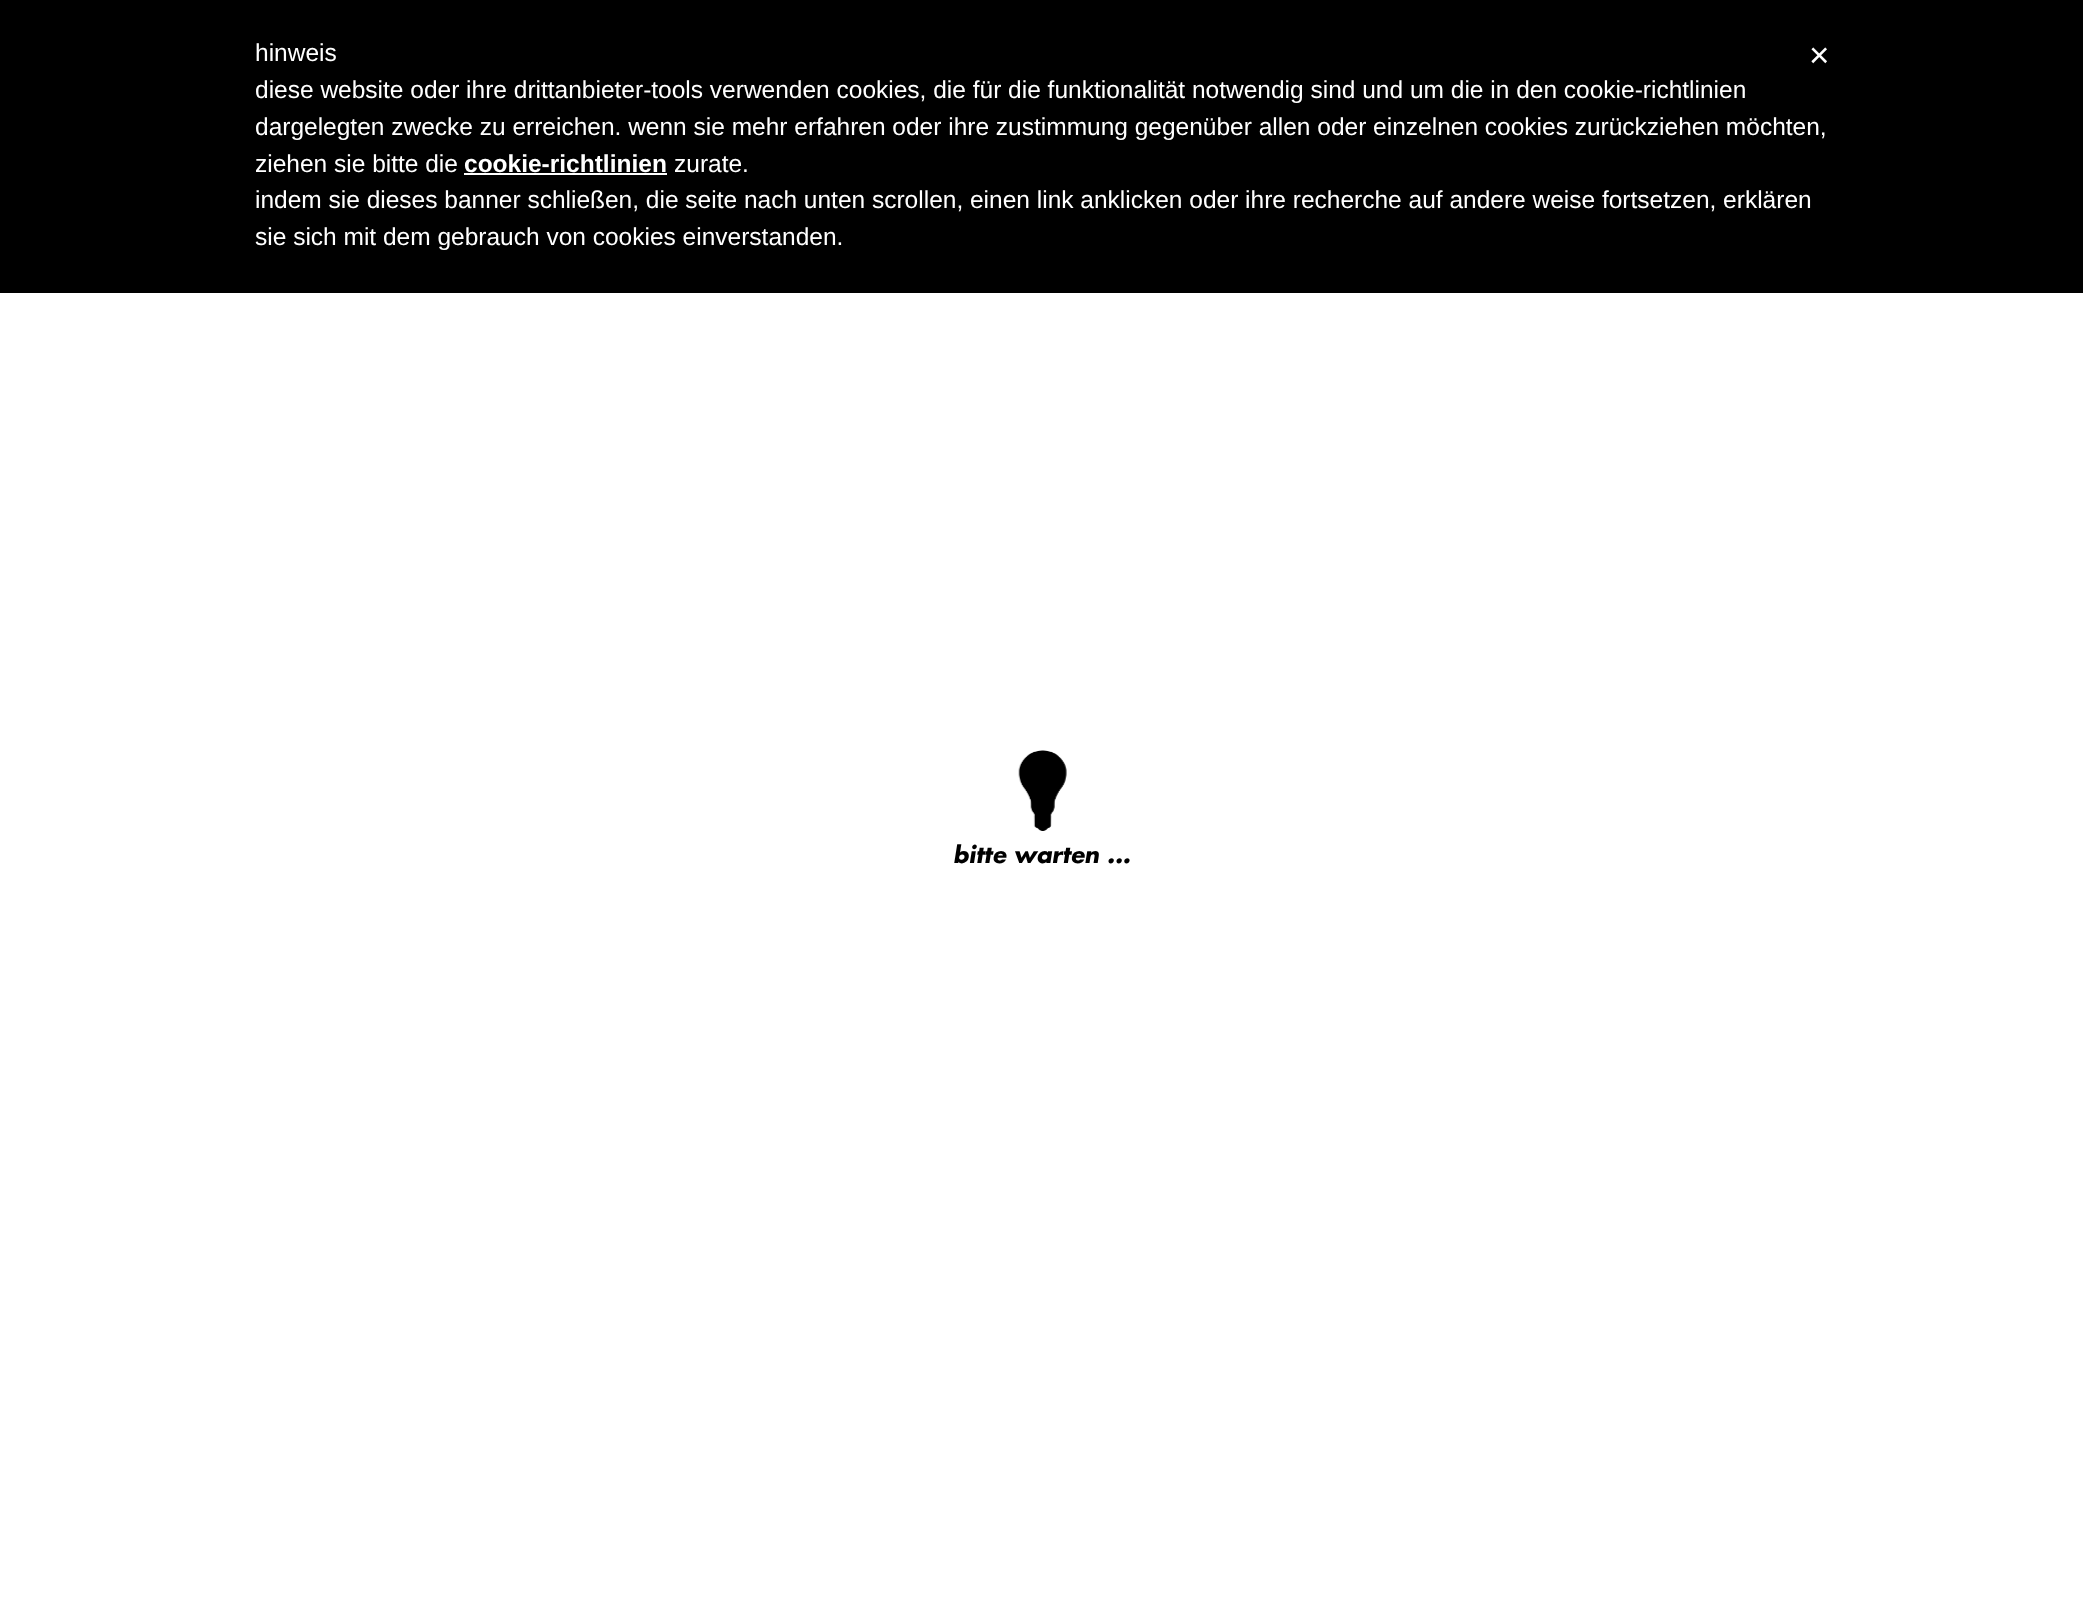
async function draw(canvas) {
	canvas.width = 2083;
	canvas.height = 1620;
	const c = canvas.getContext('2d');
	c.miterLimit = 4;
	c.fontKerning = 'normal';
	async function loadImage(src) {
		const img = new Image();
		img.src = src;
		await img.decode();
		return img;
	}

	c.fillStyle = '#fff';
	c.fillRect(0, 0, 2083, 1620);
	c.fillStyle = '#000';
	c.fillRect(0, 0, 2083, 293);
	c.font = '24.5px Liberation Sans';
	c.fillStyle = '#fff';
	for (const [text, x, y] of [
		['hinweis', 255, 61],
		['diese website oder ihre drittanbieter-tools verwenden cookies, die für die funktionalität notwendig sind und um die in den cookie-richtlinien', 255, 98],
		['dargelegten zwecke zu erreichen. wenn sie mehr erfahren oder ihre zustimmung gegenüber allen oder einzelnen cookies zurückziehen möchten,', 255, 135],
		['ziehen sie bitte die', 255, 172],
	]) {
		c.fillText(text, x, y);
	}
	c.font = 'bold 24.5px Liberation Sans';
	c.fillText('cookie-richtlinien', 464, 172);
	c.fillRect(464, 173, 203, 2);
	c.font = '24.5px Liberation Sans';
	for (const [text, x, y] of [
		['zurate.', 674, 172],
		['indem sie dieses banner schließen, die seite nach unten scrollen, einen link anklicken oder ihre recherche auf andere weise fortsetzen, erklären', 255, 208],
		['sie sich mit dem gebrauch von cookies einverstanden.', 255, 245],
	]) {
		c.fillText(text, x, y);
	}
	c.font = '35px Liberation Sans';
	c.fillText('×', 1809, 67);
	c.drawImage(await loadImage('img1.png'), 1018, 750, 49, 81);
	c.font = 'bold 22.75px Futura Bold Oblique';
	c.fillStyle = '#000';
	c.fillText('bitte warten ...', 953, 863);
}

draw(document.querySelector('canvas'));
